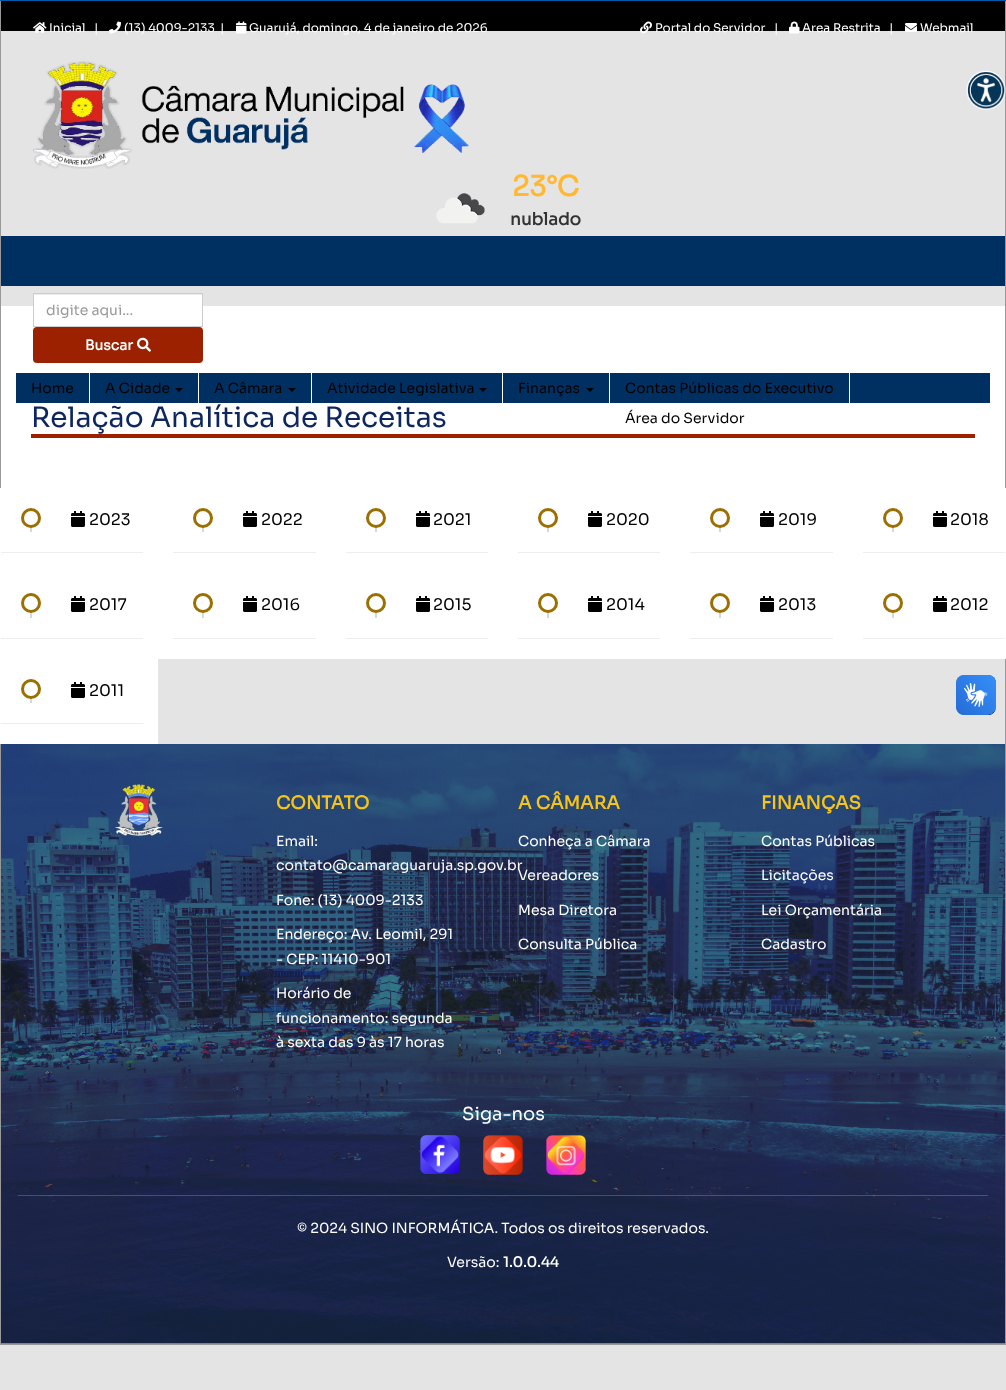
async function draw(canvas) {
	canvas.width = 1006;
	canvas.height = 1390;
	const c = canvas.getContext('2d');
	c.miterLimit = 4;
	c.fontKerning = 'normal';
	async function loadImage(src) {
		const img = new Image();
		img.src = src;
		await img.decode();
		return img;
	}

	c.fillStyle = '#e5e4e4';
	c.fillRect(0, 0, 1006, 1390);
	c.strokeStyle = '#999';
	c.strokeRect(0.5, 0.5, 1005, 1344);
	c.fillStyle = '#000';
	c.fillRect(1, 1, 1004, 30);
	c.fillStyle = '#00000033';
	c.filter = 'blur(2.5px)';
	c.beginPath();
	c.rect(0, -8, 1006, 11);
	c.fill();
	c.filter = 'none';
	c.fillStyle = '#005ca9';
	c.fillRect(0, 0, 1006, 1);
	c.drawImage(await loadImage('img1.png'), 33, 22, 14, 11);
	c.font = '12px Sora';
	c.fillStyle = '#fff';
	c.fillText('Inicial', 49, 32);
	c.fillText('|', 94, 32);
	c.drawImage(await loadImage('img2.png'), 109, 21, 12, 13);
	c.fillText('(13) 4009-2133', 124, 32);
	c.fillText('|', 220, 32);
	c.drawImage(await loadImage('img3.png'), 236, 21, 11, 13);
	c.fillText('Guarujá, domingo, 4 de janeiro de 2026', 249, 32);
	c.drawImage(await loadImage('img4.png'), 640, 21, 12, 13);
	c.fillText('Portal do Servidor', 655, 32);
	c.fillText('|', 774, 32);
	c.drawImage(await loadImage('img5.png'), 789, 21, 11, 13);
	c.fillText('Area Restrita', 802, 32);
	c.fillText('|', 889, 32);
	c.drawImage(await loadImage('img6.png'), 905, 23, 12, 9);
	c.fillText('Webmail', 920, 32);
	c.drawImage(await loadImage('img7.png'), 966, 70, 40, 40);
	c.drawImage(await loadImage('img8.png'), 33, 61, 436, 108);
	c.drawImage(await loadImage('img9.png'), 436, 193, 49, 31);
	c.font = 'bold 28px Sora';
	c.fillStyle = '#ffb832';
	c.fillText('23°C', 512, 196);
	c.font = 'bold 17px Sora';
	c.fillStyle = '#333';
	c.fillText('nublado', 510, 225);
	for (const [x, y, w, h, color] of [
		[34, 295, 168, 11, '#fff'],
		[34, 294, 168, 1, '#ececec'],
		[1, 306, 1004, 182, '#fff'],
	]) {
		c.fillStyle = color;
		c.fillRect(x, y, w, h);
	}
	c.strokeStyle = '#ccc';
	c.strokeRect(33.5, 293.5, 169, 33);
	c.font = '14px Sora';
	c.fillStyle = '#999';
	c.fillText('digite aqui...', 46, 315);
	c.fillStyle = '#9b2100';
	c.beginPath();
	c.roundRect(33, 327, 170, 36, 4);
	c.fill();
	c.font = 'bold 14px Sora';
	c.fillStyle = '#fff';
	c.fillText('Buscar', 85, 350);
	c.drawImage(await loadImage('img10.png'), 137, 337, 14, 15);
	for (const [x, y, w, h, color] of [
		[1, 236, 1004, 50, '#003062'],
		[16, 373, 974, 30, '#003062'],
		[89, 373, 1, 30, '#fff'],
	]) {
		c.fillStyle = color;
		c.fillRect(x, y, w, h);
	}
	c.font = '14px Sora';
	c.fillStyle = '#000';
	c.fillText('Home', 31, 393);
	c.font = '28px Sora';
	c.fillStyle = '#0d265f';
	c.fillText('Relação Analítica de Receitas', 31, 427);
	c.fillStyle = '#fff';
	c.fillRect(198, 373, 1, 34);
	c.font = '14px Sora';
	c.fillStyle = '#000';
	c.fillText('A Cidade', 105, 393);
	c.beginPath();
	c.moveTo(175, 388);
	c.lineTo(183, 388);
	c.lineTo(179, 392);
	c.closePath();
	c.fill();
	c.fillStyle = '#fff';
	c.fillRect(311, 373, 1, 34);
	c.fillStyle = '#000';
	c.fillText('A Câmara', 214, 393);
	c.beginPath();
	c.moveTo(288, 388);
	c.lineTo(296, 388);
	c.lineTo(292, 392);
	c.closePath();
	c.fill();
	c.fillStyle = '#fff';
	c.fillRect(502, 373, 1, 34);
	c.fillStyle = '#000';
	c.fillText('Atividade Legislativa', 327, 393);
	c.beginPath();
	c.moveTo(479, 388);
	c.lineTo(487, 388);
	c.lineTo(483, 392);
	c.closePath();
	c.fill();
	c.fillStyle = '#fff';
	c.fillRect(609, 373, 1, 34);
	c.fillStyle = '#000';
	c.fillText('Finanças', 518, 393);
	c.beginPath();
	c.moveTo(586, 388);
	c.lineTo(594, 388);
	c.lineTo(590, 392);
	c.closePath();
	c.fill();
	c.fillStyle = '#fff';
	c.fillRect(849, 373, 1, 30);
	c.fillStyle = '#000';
	c.fillText('Contas Públicas do Executivo', 625, 393);
	c.fillText('Área do Servidor', 625, 423);
	for (const [x, y, w, h, color] of [
		[31, 434, 944, 4, '#9b2100'],
		[0, 488, 1006, 85, '#fff'],
		[30, 508, 2, 24, '#d4d9df'],
	]) {
		c.fillStyle = color;
		c.fillRect(x, y, w, h);
	}
	c.fillStyle = '#fff';
	c.beginPath();
	c.arc(31, 518, 8.5, 0, 2 * Math.PI);
	c.fill();
	c.strokeStyle = '#9b6f00';
	c.lineWidth = 3;
	c.stroke();
	c.drawImage(await loadImage('img11.png'), 71, 511, 14, 16);
	c.font = '16px Sora';
	c.fillStyle = '#000';
	c.fillText('2023', 89, 525);
	c.fillStyle = '#eee';
	c.fillRect(1, 552, 142, 1);
	c.fillStyle = '#d4d9df';
	c.fillRect(202, 508, 2, 24);
	c.fillStyle = '#fff';
	c.beginPath();
	c.arc(203, 518, 8.5, 0, 2 * Math.PI);
	c.fill();
	c.stroke();
	c.drawImage(await loadImage('img11.png'), 243, 511, 14, 16);
	c.fillStyle = '#000';
	c.fillText('2022', 261, 525);
	c.fillStyle = '#eee';
	c.fillRect(173, 552, 143, 1);
	c.fillStyle = '#d4d9df';
	c.fillRect(375, 508, 2, 24);
	c.fillStyle = '#fff';
	c.beginPath();
	c.arc(376, 518, 8.5, 0, 2 * Math.PI);
	c.fill();
	c.stroke();
	c.drawImage(await loadImage('img11.png'), 416, 511, 14, 16);
	c.fillStyle = '#000';
	c.fillText('2021', 433, 525);
	c.fillStyle = '#eee';
	c.fillRect(346, 552, 142, 1);
	c.fillStyle = '#d4d9df';
	c.fillRect(547, 508, 2, 24);
	c.fillStyle = '#fff';
	c.beginPath();
	c.arc(548, 518, 8.5, 0, 2 * Math.PI);
	c.fill();
	c.stroke();
	c.drawImage(await loadImage('img11.png'), 588, 511, 14, 16);
	c.fillStyle = '#000';
	c.fillText('2020', 606, 525);
	c.fillStyle = '#eee';
	c.fillRect(518, 552, 142, 1);
	c.fillStyle = '#d4d9df';
	c.fillRect(719, 508, 2, 24);
	c.fillStyle = '#fff';
	c.beginPath();
	c.arc(720, 518, 8.5, 0, 2 * Math.PI);
	c.fill();
	c.stroke();
	c.drawImage(await loadImage('img11.png'), 760, 511, 14, 16);
	c.fillStyle = '#000';
	c.fillText('2019', 778, 525);
	c.fillStyle = '#eee';
	c.fillRect(690, 552, 143, 1);
	c.fillStyle = '#d4d9df';
	c.fillRect(892, 508, 2, 24);
	c.fillStyle = '#fff';
	c.beginPath();
	c.arc(893, 518, 8.5, 0, 2 * Math.PI);
	c.fill();
	c.stroke();
	c.drawImage(await loadImage('img11.png'), 933, 511, 14, 16);
	c.fillStyle = '#000';
	c.fillText('2018', 950, 525);
	for (const [x, y, w, h, color] of [
		[863, 552, 142, 1, '#eee'],
		[0, 573, 1006, 86, '#fff'],
		[30, 593, 2, 25, '#d4d9df'],
	]) {
		c.fillStyle = color;
		c.fillRect(x, y, w, h);
	}
	c.fillStyle = '#fff';
	c.beginPath();
	c.arc(31, 603, 8.5, 0, 2 * Math.PI);
	c.fill();
	c.stroke();
	c.drawImage(await loadImage('img11.png'), 71, 596, 14, 16);
	c.fillStyle = '#000';
	c.fillText('2017', 89, 610);
	c.fillStyle = '#eee';
	c.fillRect(1, 638, 142, 1);
	c.fillStyle = '#d4d9df';
	c.fillRect(202, 593, 2, 25);
	c.fillStyle = '#fff';
	c.beginPath();
	c.arc(203, 603, 8.5, 0, 2 * Math.PI);
	c.fill();
	c.stroke();
	c.drawImage(await loadImage('img11.png'), 243, 596, 14, 16);
	c.fillStyle = '#000';
	c.fillText('2016', 261, 610);
	c.fillStyle = '#eee';
	c.fillRect(173, 638, 143, 1);
	c.fillStyle = '#d4d9df';
	c.fillRect(375, 593, 2, 25);
	c.fillStyle = '#fff';
	c.beginPath();
	c.arc(376, 603, 8.5, 0, 2 * Math.PI);
	c.fill();
	c.stroke();
	c.drawImage(await loadImage('img11.png'), 416, 596, 14, 16);
	c.fillStyle = '#000';
	c.fillText('2015', 433, 610);
	c.fillStyle = '#eee';
	c.fillRect(346, 638, 142, 1);
	c.fillStyle = '#d4d9df';
	c.fillRect(547, 593, 2, 25);
	c.fillStyle = '#fff';
	c.beginPath();
	c.arc(548, 603, 8.5, 0, 2 * Math.PI);
	c.fill();
	c.stroke();
	c.drawImage(await loadImage('img11.png'), 588, 596, 14, 16);
	c.fillStyle = '#000';
	c.fillText('2014', 606, 610);
	c.fillStyle = '#eee';
	c.fillRect(518, 638, 142, 1);
	c.fillStyle = '#d4d9df';
	c.fillRect(719, 593, 2, 25);
	c.fillStyle = '#fff';
	c.beginPath();
	c.arc(720, 603, 8.5, 0, 2 * Math.PI);
	c.fill();
	c.stroke();
	c.drawImage(await loadImage('img11.png'), 760, 596, 14, 16);
	c.fillStyle = '#000';
	c.fillText('2013', 778, 610);
	c.fillStyle = '#eee';
	c.fillRect(690, 638, 143, 1);
	c.fillStyle = '#d4d9df';
	c.fillRect(892, 593, 2, 25);
	c.fillStyle = '#fff';
	c.beginPath();
	c.arc(893, 603, 8.5, 0, 2 * Math.PI);
	c.fill();
	c.stroke();
	c.drawImage(await loadImage('img11.png'), 933, 596, 14, 16);
	c.fillStyle = '#000';
	c.fillText('2012', 950, 610);
	for (const [x, y, w, h, color] of [
		[863, 638, 142, 1, '#eee'],
		[0, 659, 158, 85, '#fff'],
		[30, 679, 2, 24, '#d4d9df'],
	]) {
		c.fillStyle = color;
		c.fillRect(x, y, w, h);
	}
	c.fillStyle = '#fff';
	c.beginPath();
	c.arc(31, 689, 8.5, 0, 2 * Math.PI);
	c.fill();
	c.stroke();
	c.drawImage(await loadImage('img11.png'), 71, 682, 14, 16);
	c.fillStyle = '#000';
	c.fillText('2011', 89, 696);
	c.fillStyle = '#eee';
	c.fillRect(1, 723, 142, 1);
	c.fillStyle = '#1b6eb0';
	c.beginPath();
	c.roundRect(956, 675, 40, 40, 8);
	c.fill();
	c.drawImage(await loadImage('img12.png'), 956, 675, 40, 40);
	c.drawImage(await loadImage('img13.png'), 956, 675, 40, 40);
	c.drawImage(await loadImage('img14.png'), 1, 744, 1004, 600);
	c.drawImage(await loadImage('img15.png'), 114, 784, 49, 52);
	c.font = 'bold 18px Sora';
	c.fillStyle = '#f7c418';
	c.fillText('CONTATO', 276, 809);
	c.font = '14px Sora';
	c.fillStyle = '#fff';
	for (const [text, x, y] of [
		['Email:', 276, 846],
		['contato@camaraguaruja.sp.gov.br', 276, 870],
		['Fone: (13) 4009-2133', 276, 905],
		['Endereço: Av. Leomil, 291', 276, 939],
		['- CEP: 11410-901', 276, 964],
		['Horário de', 276, 998],
		['funcionamento: segunda', 276, 1023],
		['à sexta das 9 às 17 horas', 276, 1047],
	]) {
		c.fillText(text, x, y);
	}
	c.font = 'bold 18px Sora';
	c.fillStyle = '#f7c418';
	c.fillText('A CÂMARA', 518, 809);
	c.font = '14px Sora';
	c.fillStyle = '#fff';
	for (const [text, x, y] of [
		['Conheça a Câmara', 518, 846],
		['Vereadores', 518, 880],
		['Mesa Diretora', 518, 915],
		['Consulta Pública', 518, 949],
	]) {
		c.fillText(text, x, y);
	}
	c.font = 'bold 18px Sora';
	c.fillStyle = '#f7c418';
	c.fillText('FINANÇAS', 761, 809);
	c.font = '14px Sora';
	c.fillStyle = '#fff';
	for (const [text, x, y] of [
		['Contas Públicas', 761, 846],
		['Licitações', 761, 880],
		['Lei Orçamentária', 761, 915],
		['Cadastro', 761, 949],
	]) {
		c.fillText(text, x, y);
	}
	c.font = '18px Sora';
	c.fillText('Siga-nos', 462, 1120);
	c.drawImage(await loadImage('img16.png'), 420, 1135, 40, 39);
	c.drawImage(await loadImage('img17.png'), 483, 1135, 40, 40);
	c.drawImage(await loadImage('img18.png'), 546, 1135, 40, 40);
	c.fillStyle = '#ffffff33';
	c.fillRect(18, 1195, 970, 1);
	c.font = '14px Sora';
	c.fillStyle = '#fff';
	c.fillText('© 2024 SINO INFORMÁTICA. Todos os direitos reservados.', 297, 1233);
	c.fillText('Versão:', 447, 1267);
	c.font = 'bold 14px Sora';
	c.fillText('1.0.0.44', 503, 1267);
}

draw(document.querySelector('canvas'));
